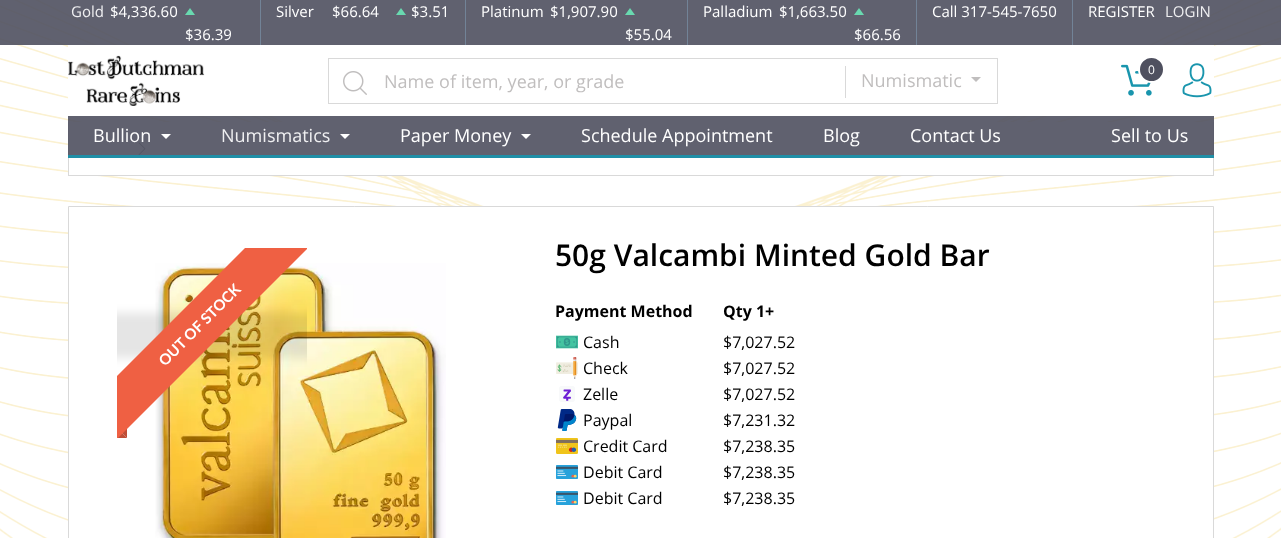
async function draw(canvas) {
	canvas.width = 1281;
	canvas.height = 538;
	const c = canvas.getContext('2d');
	c.miterLimit = 4;
	c.fontKerning = 'normal';
	async function loadImage(src) {
		const img = new Image();
		img.src = src;
		await img.decode();
		return img;
	}

	c.fillStyle = '#fff';
	c.fillRect(0, 0, 1281, 538);
	c.drawImage(await loadImage('img1.png'), 0, 0, 1281, 538);
	c.fillStyle = '#4f505fe6';
	c.fillRect(0, 0, 1281, 45);
	c.font = '15px Open Sans';
	c.fillStyle = '#efeff1';
	c.fillText('Gold', 71, 17);
	c.fillStyle = '#fff';
	c.fillText('$4,336.60', 110, 17);
	c.fillStyle = '#69d9b0';
	c.beginPath();
	c.moveTo(195, 15);
	c.lineTo(185, 15);
	c.lineTo(190, 8);
	c.closePath();
	c.fill();
	c.fillStyle = '#fff';
	c.fillText('$36.39', 185, 40);
	c.fillStyle = '#728397';
	c.fillRect(260, 0, 1, 45);
	c.fillStyle = '#fff';
	c.fillText('Silver', 276, 17);
	c.fillText('$66.64', 332, 17);
	c.fillStyle = '#69d9b0';
	c.beginPath();
	c.moveTo(406, 15);
	c.lineTo(396, 15);
	c.lineTo(401, 8);
	c.closePath();
	c.fill();
	c.fillStyle = '#fff';
	c.fillText('$3.51', 411, 17);
	c.fillStyle = '#728397';
	c.fillRect(465, 0, 1, 45);
	c.fillStyle = '#fff';
	c.fillText('Platinum', 481, 17);
	c.fillText('$1,907.90', 550, 17);
	c.fillStyle = '#69d9b0';
	c.beginPath();
	c.moveTo(635, 15);
	c.lineTo(625, 15);
	c.lineTo(630, 8);
	c.closePath();
	c.fill();
	c.fillStyle = '#fff';
	c.fillText('$55.04', 625, 40);
	c.fillStyle = '#728397';
	c.fillRect(687, 0, 1, 45);
	c.fillStyle = '#fff';
	c.fillText('Palladium', 703, 17);
	c.fillText('$1,663.50', 779, 17);
	c.fillStyle = '#69d9b0';
	c.beginPath();
	c.moveTo(864, 15);
	c.lineTo(854, 15);
	c.lineTo(859, 8);
	c.closePath();
	c.fill();
	c.fillStyle = '#fff';
	c.fillText('$66.56', 854, 40);
	c.fillStyle = '#728397';
	c.fillRect(916, 0, 1, 45);
	c.fillStyle = '#fff';
	c.fillText('Call 317-545-7650', 932, 17);
	c.fillStyle = '#728397';
	c.fillRect(1072, 0, 1, 45);
	c.fillStyle = '#fff';
	c.fillText('REGISTER', 1088, 17);
	c.fillStyle = '#efeff1';
	c.fillText('LOGIN', 1165, 17);
	c.fillStyle = '#fff';
	c.fillRect(68, 45, 1146, 71);
	c.drawImage(await loadImage('img2.png'), 68, 55, 137, 51);
	c.drawImage(await loadImage('img3.png'), 1121, 64, 31, 32);
	c.fillStyle = '#4f505f';
	c.beginPath();
	c.arc(1151.5, 69.5, 12.5, 0, 2 * Math.PI);
	c.fill();
	c.strokeStyle = '#fff';
	c.lineWidth = 2;
	c.stroke();
	c.font = '12px Open Sans';
	c.fillStyle = '#fff';
	c.fillText('0', 1148, 74);
	c.drawImage(await loadImage('img4.png'), 1182, 63, 30, 35);
	c.drawImage(await loadImage('img5.png'), 343, 71, 24, 24);
	for (const [x, y, w, h, color] of [
		[328, 58, 670, 1, '#d9d9d9'],
		[328, 103, 518, 1, '#d9d9d9'],
		[328, 58, 1, 46, '#d9d9d9'],
	]) {
		c.fillStyle = color;
		c.fillRect(x, y, w, h);
	}
	c.font = '18px Open Sans';
	c.fillStyle = '#c0bebe';
	c.fillText('Name of item, year, or grade', 384, 88);
	for (const [x, y, w, h, color] of [
		[997, 58, 1, 46, '#d9d9d9'],
		[845, 103, 153, 1, '#d9d9d9'],
		[845, 66, 1, 32, '#d9d9d9'],
	]) {
		c.fillStyle = color;
		c.fillRect(x, y, w, h);
	}
	c.fillStyle = '#c0bebe';
	c.fillText('Numismatic', 861, 87);
	c.beginPath();
	c.moveTo(971, 77);
	c.lineTo(981, 77);
	c.lineTo(976, 82);
	c.closePath();
	c.fill();
	for (const [x, y, w, h, color] of [
		[69, 122, 1144, 53, '#fff'],
		[1213, 122, 1, 54, '#d9d9d9'],
		[68, 175, 1146, 1, '#d9d9d9'],
		[68, 122, 1, 54, '#d9d9d9'],
	]) {
		c.fillStyle = color;
		c.fillRect(x, y, w, h);
	}
	c.drawImage(await loadImage('img6.png'), 138, 142, 8, 13);
	c.fillStyle = '#4f505fe6';
	c.fillRect(68, 116, 1146, 42);
	c.fillStyle = '#1995ade6';
	c.fillRect(68, 155, 1146, 3);
	c.fillStyle = '#fff';
	c.fillText('Bullion', 93, 142);
	c.beginPath();
	c.moveTo(161, 134);
	c.lineTo(171, 134);
	c.lineTo(166, 139);
	c.closePath();
	c.fill();
	c.fillStyle = '#efeff1';
	c.fillText('Numismatics', 221, 142);
	c.fillStyle = '#fff';
	c.beginPath();
	c.moveTo(340, 134);
	c.lineTo(350, 134);
	c.lineTo(345, 139);
	c.closePath();
	c.fill();
	c.fillText('Paper Money', 400, 142);
	c.beginPath();
	c.moveTo(521, 134);
	c.lineTo(531, 134);
	c.lineTo(526, 139);
	c.closePath();
	c.fill();
	for (const [text, x, y] of [
		['Schedule Appointment', 581, 142],
		['Blog', 823, 142],
		['Contact Us', 910, 142],
		['Sell to Us', 1111, 142],
	]) {
		c.fillText(text, x, y);
	}
	c.beginPath();
	c.rect(68.5, 206.5, 1145, 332);
	c.fill();
	c.strokeStyle = '#d9d9d9';
	c.lineWidth = 1;
	c.stroke();
	c.drawImage(await loadImage('img7.png'), 155, 263, 291, 275);
	c.save();
	c.beginPath();
	c.rect(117, 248, 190, 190);
	c.clip();
	c.fillStyle = '#0000001a';
	c.filter = 'blur(5px)';
	c.beginPath();
	c.rect(44, 313, 300, 45);
	c.fill();
	c.filter = 'none';
	c.restore();
	c.fillStyle = '#bf4d36';
	c.beginPath();
	c.moveTo(127, 428);
	c.lineTo(127, 438);
	c.lineTo(122, 433);
	c.closePath();
	c.fill();
	c.beginPath();
	c.moveTo(127, 438);
	c.lineTo(117, 438);
	c.lineTo(122, 433);
	c.closePath();
	c.fill();
	c.save();
	c.beginPath();
	c.rect(117, 248, 190, 190);
	c.clip();
	c.fillStyle = '#ef6043';
	c.beginPath();
	c.moveTo(72, 421);
	c.lineTo(284, 209);
	c.lineTo(316, 240);
	c.lineTo(104, 452);
	c.closePath();
	c.fill();
	c.restore();
	c.font = 'bold 15px Lato';
	c.fillStyle = '#fff';
	c.save();
	c.translate(165, 367);
	c.rotate(-45 * Math.PI / 180);
	c.fillText('OUT OF STOCK', 0, 0);
	c.restore();
	c.font = '600 30px Open Sans';
	c.fillStyle = '#000';
	c.fillText('50g Valcambi Minted Gold Bar', 555, 266);
	c.font = 'bold 16px Open Sans';
	c.fillText('Payment Method', 555, 317);
	c.fillText('Qty 1+', 723, 317);
	c.drawImage(await loadImage('img8.png'), 556, 335, 22, 14);
	c.font = '16px Open Sans';
	c.fillText('Cash', 583, 348);
	c.fillText('$7,027.52', 723, 348);
	c.drawImage(await loadImage('img9.png'), 556, 357, 22, 22);
	c.fillText('Check', 583, 374);
	c.fillText('$7,027.52', 723, 374);
	c.drawImage(await loadImage('img10.png'), 559, 386, 16, 16);
	c.fillText('Zelle', 583, 400);
	c.fillText('$7,027.52', 723, 400);
	c.drawImage(await loadImage('img11.png'), 557, 409, 20, 22);
	c.fillText('Paypal', 583, 426);
	c.fillText('$7,231.32', 723, 426);
	c.drawImage(await loadImage('img12.png'), 556, 438, 22, 16);
	c.fillText('Credit Card', 583, 452);
	c.fillText('$7,238.35', 723, 452);
	c.drawImage(await loadImage('img13.png'), 556, 465, 22, 14);
	c.fillText('Debit Card', 583, 478);
	c.fillText('$7,238.35', 723, 478);
	c.drawImage(await loadImage('img13.png'), 556, 491, 22, 14);
	c.fillText('Debit Card', 583, 504);
	c.fillText('$7,238.35', 723, 504);
}

draw(document.querySelector('canvas'));
